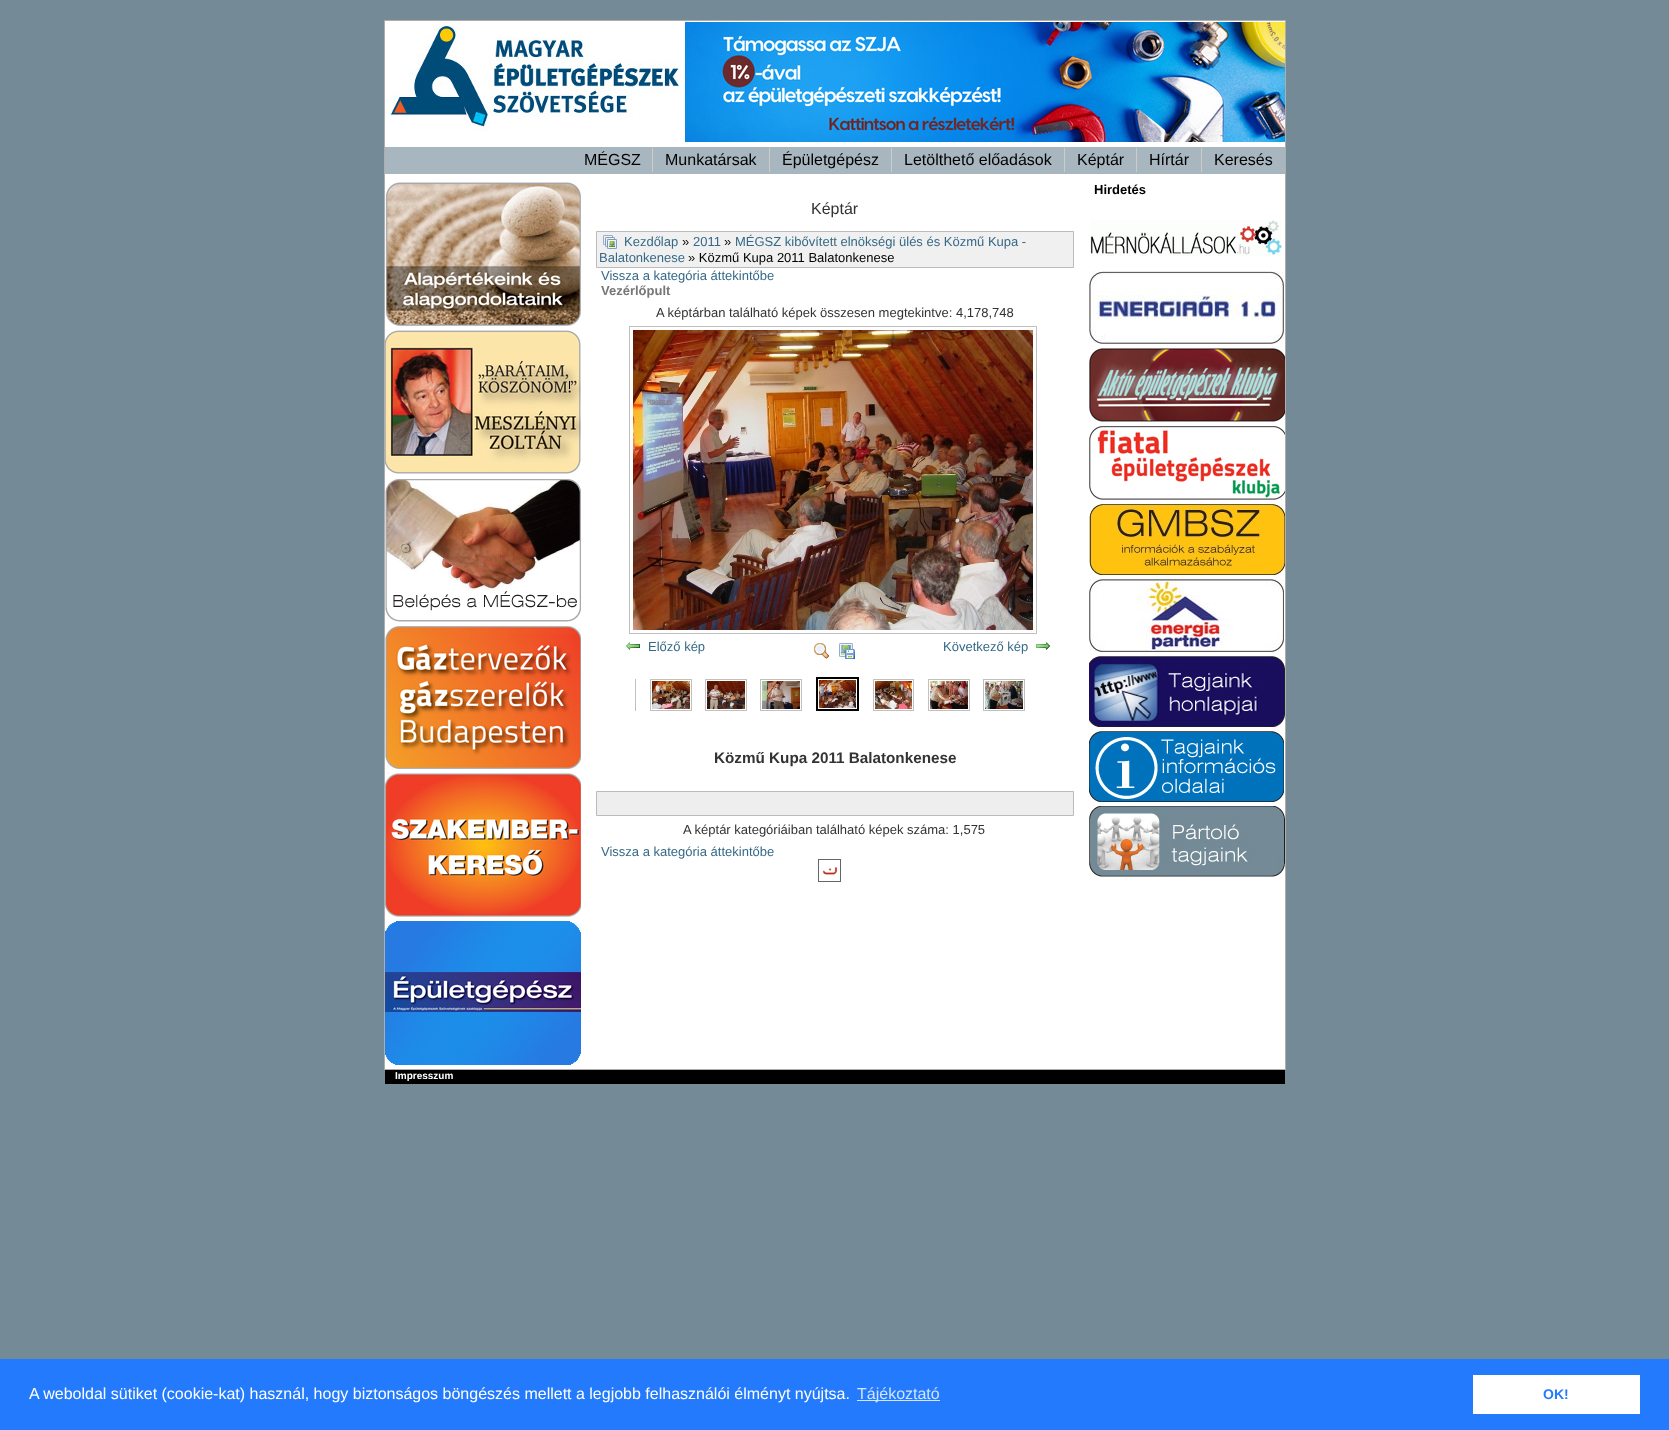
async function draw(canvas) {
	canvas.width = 1669;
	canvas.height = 1430;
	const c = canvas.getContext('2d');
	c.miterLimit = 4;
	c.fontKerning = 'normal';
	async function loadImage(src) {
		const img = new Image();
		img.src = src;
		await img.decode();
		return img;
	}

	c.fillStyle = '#748a96';
	c.fillRect(0, 0, 1669, 1430);
	c.fillStyle = '#fff';
	c.beginPath();
	c.rect(384.5, 20.5, 901, 1049);
	c.fill();
	c.strokeStyle = '#aeaeae';
	c.stroke();
	c.drawImage(await loadImage('img1.png'), 385, 21, 296, 111);
	c.drawImage(await loadImage('img2.png'), 685, 22, 600, 120);
	c.fillStyle = '#a7b6bf';
	c.fillRect(385, 147, 900, 27);
	c.fillStyle = '#ccc';
	c.fillRect(652, 148, 1, 24);
	c.font = '16px Liberation Sans';
	c.fillStyle = '#000';
	c.fillText('MÉGSZ', 584, 165);
	c.fillStyle = '#ccc';
	c.fillRect(769, 148, 1, 24);
	c.fillStyle = '#000';
	c.fillText('Munkatársak', 665, 165);
	c.fillStyle = '#ccc';
	c.fillRect(891, 148, 1, 24);
	c.fillStyle = '#000';
	c.fillText('Épületgépész', 782, 165);
	c.fillStyle = '#ccc';
	c.fillRect(1064, 148, 1, 24);
	c.fillStyle = '#000';
	c.fillText('Letölthető előadások', 904, 165);
	c.fillStyle = '#ccc';
	c.fillRect(1136, 148, 1, 24);
	c.fillStyle = '#000';
	c.fillText('Képtár', 1077, 165);
	c.fillStyle = '#ccc';
	c.fillRect(1201, 148, 1, 24);
	c.fillStyle = '#000';
	c.fillText('Hírtár', 1149, 165);
	c.fillText('Keresés', 1214, 165);
	c.drawImage(await loadImage('img3.png'), 385, 182, 196, 144);
	c.drawImage(await loadImage('img4.png'), 385, 330, 196, 144);
	c.drawImage(await loadImage('img5.png'), 385, 478, 196, 144);
	c.drawImage(await loadImage('img6.png'), 385, 626, 196, 143);
	c.drawImage(await loadImage('img7.png'), 385, 773, 196, 144);
	c.drawImage(await loadImage('img8.png'), 385, 921, 196, 144);
	c.font = 'bold 13px Liberation Sans';
	c.fillText('Hirdetés', 1094, 194);
	c.drawImage(await loadImage('img9.png'), 1090, 220, 192, 36);
	c.drawImage(await loadImage('img10.png'), 1089, 271, 195, 73);
	c.drawImage(await loadImage('img11.png'), 1089, 348, 196, 74);
	c.drawImage(await loadImage('img12.png'), 1089, 426, 196, 74);
	c.drawImage(await loadImage('img13.png'), 1089, 504, 196, 71);
	c.drawImage(await loadImage('img14.png'), 1089, 579, 195, 73);
	c.drawImage(await loadImage('img15.png'), 1089, 656, 196, 71);
	c.drawImage(await loadImage('img16.png'), 1089, 731, 195, 71);
	c.drawImage(await loadImage('img17.png'), 1089, 806, 196, 71);
	c.font = '16px Liberation Sans';
	c.fillStyle = '#333';
	c.fillText('Képtár', 811, 214);
	c.fillStyle = '#f0f0f0';
	c.beginPath();
	c.rect(596.5, 231.5, 477, 36);
	c.fill();
	c.strokeStyle = '#bbb';
	c.stroke();
	c.drawImage(await loadImage('img18.png'), 603, 235, 14, 14);
	c.font = '13px Liberation Sans';
	c.fillStyle = '#356987';
	c.fillText('Kezdőlap', 624, 246);
	c.fillStyle = '#000';
	c.fillText('»', 682, 246);
	c.fillStyle = '#356987';
	c.fillText('2011', 693, 246);
	c.fillStyle = '#000';
	c.fillText('»', 724, 246);
	c.fillStyle = '#356987';
	c.fillText('MÉGSZ kibővített elnökségi ülés és Közmű Kupa -', 735, 246);
	c.fillText('Balatonkenese', 599, 262);
	c.fillStyle = '#000';
	c.fillText('» Közmű Kupa 2011 Balatonkenese', 688, 262);
	c.fillStyle = '#356987';
	c.fillText('Vissza a kategória áttekintőbe', 601, 280);
	c.font = 'bold 13px Liberation Sans';
	c.fillStyle = '#777';
	c.fillText('Vezérlőpult', 601, 295);
	c.font = '13px Liberation Sans';
	c.fillStyle = '#333';
	c.fillText('A képtárban található képek összesen megtekintve: 4,178,748', 656, 317);
	c.strokeStyle = '#c0c0c0';
	c.strokeRect(629.5, 326.5, 407, 307);
	c.drawImage(await loadImage('img19.png'), 633, 330, 400, 300);
	c.drawImage(await loadImage('img20.png'), 626, 642, 14, 8);
	c.fillStyle = '#356987';
	c.fillText('Előző kép', 648, 651);
	c.drawImage(await loadImage('img21.png'), 814, 643, 16, 16);
	c.drawImage(await loadImage('img22.png'), 839, 643, 16, 16);
	c.fillText('Következő kép', 943, 651);
	c.drawImage(await loadImage('img23.png'), 1036, 642, 14, 8);
	c.save();
	c.beginPath();
	c.rect(635, 677, 400, 50);
	c.clip();
	c.strokeRect(595.5, 679.5, 40, 31);
	c.restore();
	c.strokeRect(650.5, 679.5, 41, 31);
	c.strokeRect(705.5, 679.5, 41, 31);
	c.strokeRect(760.5, 679.5, 41, 31);
	c.strokeStyle = '#000';
	c.lineWidth = 2;
	c.strokeRect(817, 678, 41, 32);
	c.strokeStyle = '#c0c0c0';
	c.lineWidth = 1;
	c.strokeRect(873.5, 679.5, 40, 31);
	c.strokeRect(928.5, 679.5, 41, 31);
	c.strokeRect(983.5, 679.5, 41, 31);
	c.drawImage(await loadImage('img24.png'), 652, 681, 38, 28);
	c.drawImage(await loadImage('img25.png'), 707, 681, 38, 28);
	c.drawImage(await loadImage('img26.png'), 762, 681, 38, 28);
	c.drawImage(await loadImage('img27.png'), 819, 680, 37, 28);
	c.drawImage(await loadImage('img28.png'), 875, 681, 37, 28);
	c.drawImage(await loadImage('img29.png'), 930, 681, 38, 28);
	c.drawImage(await loadImage('img30.png'), 985, 681, 38, 28);
	c.font = 'bold 15.25px Liberation Sans';
	c.fillStyle = '#333';
	c.fillText('Közmű Kupa 2011 Balatonkenese', 714, 763);
	c.fillStyle = '#eee';
	c.beginPath();
	c.rect(596.5, 791.5, 477, 24);
	c.fill();
	c.strokeStyle = '#bbb';
	c.stroke();
	c.font = '13px Liberation Sans';
	c.fillStyle = '#333';
	c.fillText('A képtár kategóriáiban található képek száma: 1,575', 683, 834);
	c.fillStyle = '#356987';
	c.fillText('Vissza a kategória áttekintőbe', 601, 856);
	c.strokeStyle = '#666';
	c.strokeRect(818.5, 859.5, 22, 22);
	c.drawImage(await loadImage('img31.png'), 822, 867, 16, 8);
	c.fillStyle = '#000';
	c.fillRect(385, 1070, 900, 14);
	c.font = 'bold 10px Liberation Sans';
	c.fillStyle = '#fff';
	c.fillText('Impresszum', 395, 1079);
	c.fillStyle = '#237afc';
	c.fillRect(0, 1359, 1669, 71);
	c.font = '16px Liberation Sans';
	c.fillStyle = '#fff';
	c.fillText('A weboldal sütiket (cookie-kat) használ, hogy biztonságos böngészés mellett a legjobb felhasználói élményt nyújtsa.', 29, 1399);
	c.fillStyle = '#d3e4fe';
	c.fillRect(857, 1400, 83, 1);
	c.fillText('Tájékoztató', 857, 1399);
	c.fillStyle = '#fff';
	c.fillRect(1473, 1375, 167, 39);
	c.font = 'bold 14px Liberation Sans';
	c.fillStyle = '#237afc';
	c.fillText('OK!', 1543, 1399);
}

draw(document.querySelector('canvas'));
